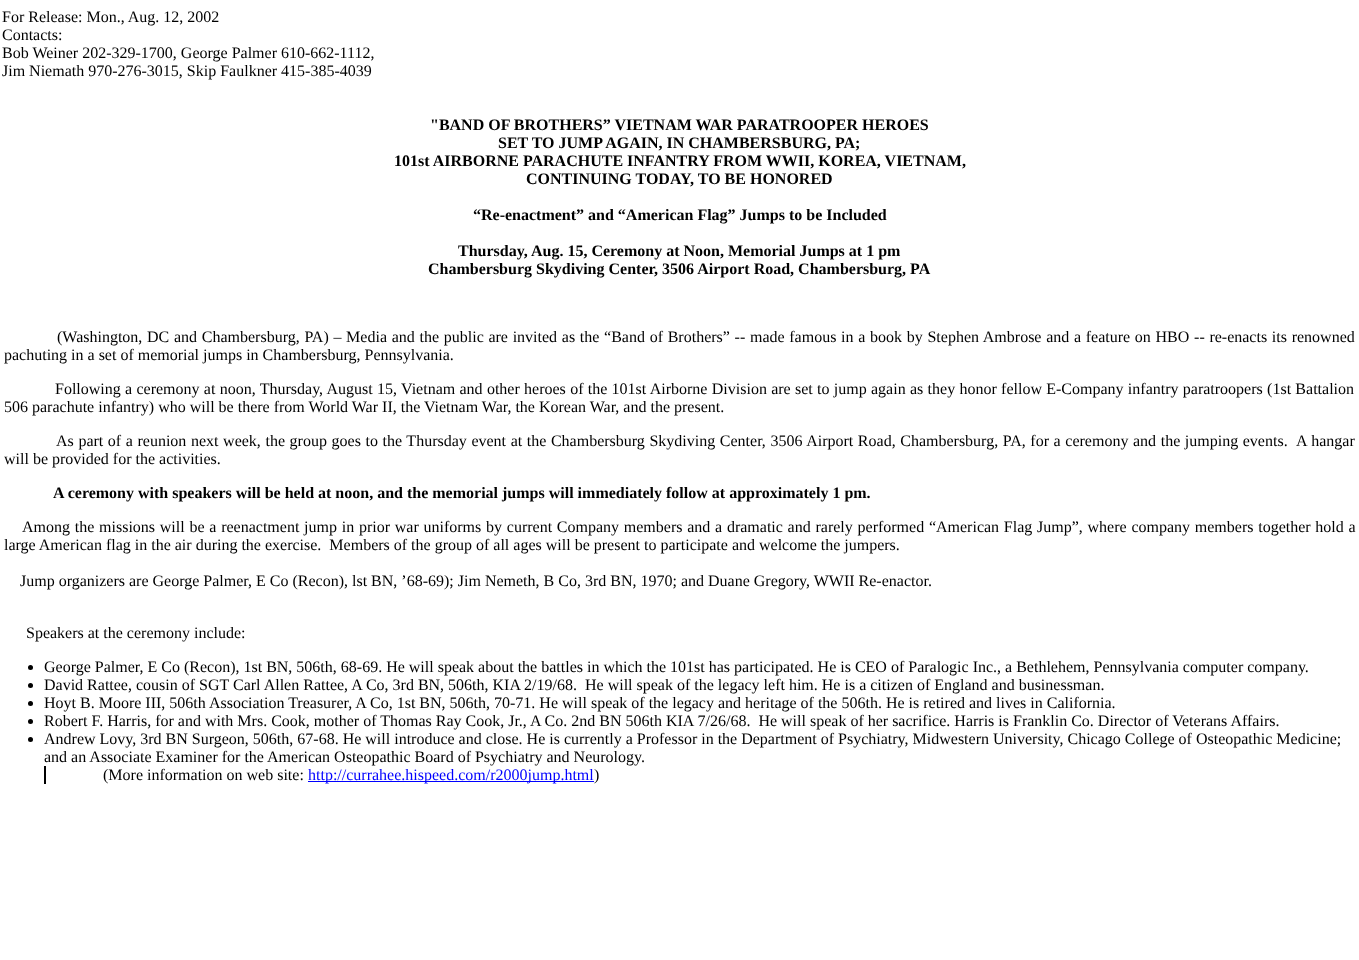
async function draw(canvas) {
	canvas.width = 1359;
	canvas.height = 960;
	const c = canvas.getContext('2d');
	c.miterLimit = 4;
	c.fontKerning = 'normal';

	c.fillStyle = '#fff';
	c.fillRect(0, 0, 1359, 960);
	c.font = '16px Liberation Serif';
	c.fillStyle = '#000';
	for (const [text, x, y] of [
		['For Release: Mon., Aug. 12, 2002', 2, 22],
		['Contacts:', 2, 40],
		['Bob Weiner 202-329-1700, George Palmer 610-662-1112,', 2, 58],
		['Jim Niemath 970-276-3015, Skip Faulkner 415-385-4039', 2, 76],
	]) {
		c.fillText(text, x, y);
	}
	c.font = 'bold 16px Liberation Serif';
	for (const [text, x, y] of [
		['"BAND OF BROTHERS” VIETNAM WAR PARATROOPER HEROES', 430, 130],
		['SET TO JUMP AGAIN, IN CHAMBERSBURG, PA;', 498, 148],
		['101st AIRBORNE PARACHUTE INFANTRY FROM WWII, KOREA, VIETNAM,', 394, 166],
		['CONTINUING TODAY, TO BE HONORED', 526, 184],
		['“Re-enactment” and “American Flag” Jumps to be Included', 473, 220],
		['Thursday, Aug. 15, Ceremony at Noon, Memorial Jumps at 1 pm', 458, 256],
		['Chambersburg Skydiving Center, 3506 Airport Road, Chambersburg, PA', 428, 274],
	]) {
		c.fillText(text, x, y);
	}
	c.wordSpacing = '0.7px';
	c.font = '16px Liberation Serif';
	c.fillText('(Washington, DC and Chambersburg, PA) – Media and the public are invited as the “Band of Brothers” -- made famous in a book by Stephen Ambrose and a feature on HBO -- re-enacts its renowned', 57, 342);
	c.wordSpacing = '0px';
	c.fillText('pachuting in a set of memorial jumps in Chambersburg, Pennsylvania.', 4, 360);
	c.wordSpacing = '0.3px';
	c.fillText('Following a ceremony at noon, Thursday, August 15, Vietnam and other heroes of the 101st Airborne Division are set to jump again as they honor fellow E-Company infantry paratroopers (1st Battalion', 55, 394);
	c.wordSpacing = '0px';
	c.fillText('506 parachute infantry) who will be there from World War II, the Vietnam War, the Korean War, and the present.', 4, 412);
	c.wordSpacing = '0.6px';
	c.fillText('As part of a reunion next week, the group goes to the Thursday event at the Chambersburg Skydiving Center, 3506 Airport Road, Chambersburg, PA, for a ceremony and the jumping events.  A hangar', 56, 446);
	c.wordSpacing = '0px';
	c.fillText('will be provided for the activities.', 4, 464);
	c.font = 'bold 16px Liberation Serif';
	c.fillText('A ceremony with speakers will be held at noon, and the memorial jumps will immediately follow at approximately 1 pm.', 53, 498);
	c.wordSpacing = '0.75px';
	c.font = '16px Liberation Serif';
	c.fillText('Among the missions will be a reenactment jump in prior war uniforms by current Company members and a dramatic and rarely performed “American Flag Jump”, where company members together hold a', 22, 532);
	c.wordSpacing = '0px';
	for (const [text, x, y] of [
		['large American flag in the air during the exercise.  Members of the group of all ages will be present to participate and welcome the jumpers.', 4, 550],
		['Jump organizers are George Palmer, E Co (Recon), lst BN, ’68-69); Jim Nemeth, B Co, 3rd BN, 1970; and Duane Gregory, WWII Re-enactor.', 20, 586],
		['Speakers at the ceremony include:', 26, 638],
	]) {
		c.fillText(text, x, y);
	}
	c.beginPath();
	c.arc(30.5, 667.5, 2.5, 0, 2 * Math.PI);
	c.fill();
	c.fillText('George Palmer, E Co (Recon), 1st BN, 506th, 68-69. He will speak about the battles in which the 101st has participated. He is CEO of Paralogic Inc., a Bethlehem, Pennsylvania computer company.', 44, 672);
	c.beginPath();
	c.arc(30.5, 685.5, 2.5, 0, 2 * Math.PI);
	c.fill();
	c.fillText('David Rattee, cousin of SGT Carl Allen Rattee, A Co, 3rd BN, 506th, KIA 2/19/68.  He will speak of the legacy left him. He is a citizen of England and businessman.', 44, 690);
	c.beginPath();
	c.arc(30.5, 703.5, 2.5, 0, 2 * Math.PI);
	c.fill();
	c.fillText('Hoyt B. Moore III, 506th Association Treasurer, A Co, 1st BN, 506th, 70-71. He will speak of the legacy and heritage of the 506th. He is retired and lives in California.', 44, 708);
	c.beginPath();
	c.arc(30.5, 721.5, 2.5, 0, 2 * Math.PI);
	c.fill();
	c.fillText('Robert F. Harris, for and with Mrs. Cook, mother of Thomas Ray Cook, Jr., A Co. 2nd BN 506th KIA 7/26/68.  He will speak of her sacrifice. Harris is Franklin Co. Director of Veterans Affairs.', 44, 726);
	c.beginPath();
	c.arc(30.5, 739.5, 2.5, 0, 2 * Math.PI);
	c.fill();
	c.fillText('Andrew Lovy, 3rd BN Surgeon, 506th, 67-68. He will introduce and close. He is currently a Professor in the Department of Psychiatry, Midwestern University, Chicago College of Osteopathic Medicine;', 44, 744);
	c.fillText('and an Associate Examiner for the American Osteopathic Board of Psychiatry and Neurology.', 44, 762);
	c.fillRect(44, 766, 2, 18);
	c.fillText('(More information on web site:', 103, 780);
	c.fillStyle = '#00f';
	c.fillRect(308, 781, 286, 1);
	c.fillText('http://currahee.hispeed.com/r2000jump.html', 308, 780);
	c.fillStyle = '#000';
	c.fillText(')', 594, 780);
}

draw(document.querySelector('canvas'));
